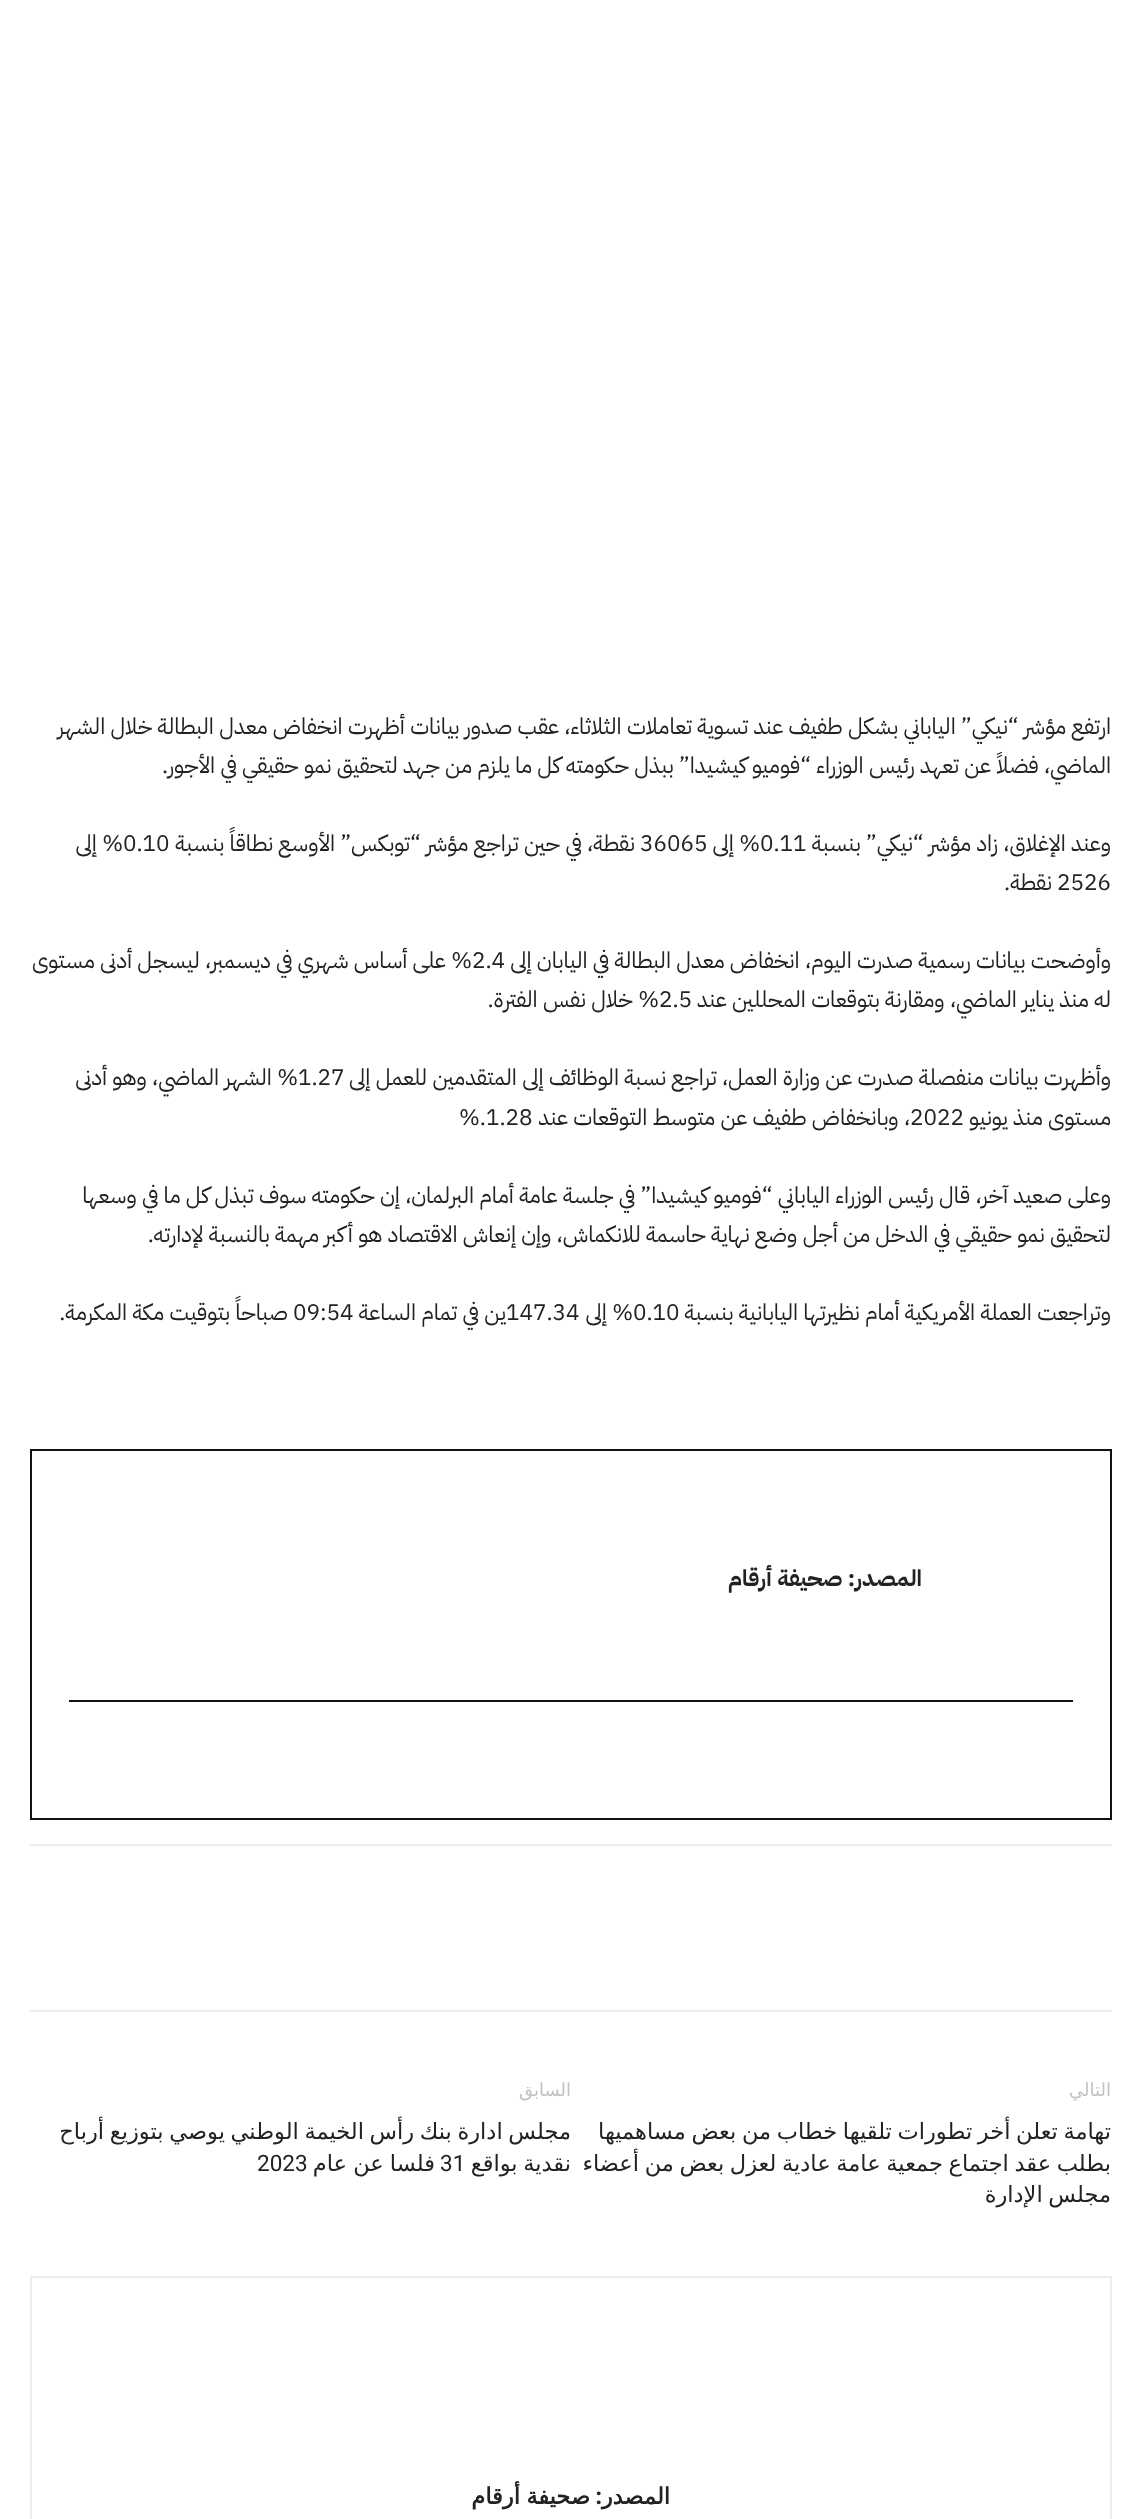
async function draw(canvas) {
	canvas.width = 1141;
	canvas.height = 2519;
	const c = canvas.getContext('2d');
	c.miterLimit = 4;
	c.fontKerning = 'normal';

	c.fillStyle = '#fff';
	c.fillRect(0, 0, 1141, 2519);
	c.direction = 'rtl';
	c.font = '22.5px IBM Plex Sans Arabic';
	c.fillStyle = '#222';
	for (const [text, x, y] of [
		['ارتفع مؤشر “نيكي” الياباني بشكل طفيف عند تسوية تعاملات الثلاثاء، عقب صدور بيانات أظهرت انخفاض معدل البطالة خلال الشهر', 1111, 734],
		['الماضي، فضلاً عن تعهد رئيس الوزراء “فوميو كيشيدا” ببذل حكومته كل ما يلزم من جهد لتحقيق نمو حقيقي في الأجور.', 1111, 773],
		['وعند الإغلاق، زاد مؤشر “نيكي” بنسبة', 1111, 851],
	]) {
		c.fillText(text, x, y);
	}
	c.direction = 'ltr';
	c.fillText('0.11', 760, 851);
	c.direction = 'rtl';
	c.fillText('% إلى', 760, 851);
	c.direction = 'ltr';
	c.fillText('36065', 640, 851);
	c.direction = 'rtl';
	c.fillText('نقطة، في حين تراجع مؤشر “توبكس” الأوسع نطاقاً بنسبة', 635, 851);
	c.direction = 'ltr';
	c.fillText('0.10', 123, 851);
	c.direction = 'rtl';
	c.fillText('% إلى', 123, 851);
	c.direction = 'ltr';
	c.fillText('2526', 1057, 890);
	c.direction = 'rtl';
	c.fillText('نقطة.', 1052, 890);
	c.fillText('وأوضحت بيانات رسمية صدرت اليوم، انخفاض معدل البطالة في اليابان إلى', 1111, 968);
	c.direction = 'ltr';
	c.fillText('2.4', 472, 968);
	c.direction = 'rtl';
	c.fillText('% على أساس شهري في ديسمبر، ليسجل أدنى مستوى', 472, 968);
	c.fillText('له منذ يناير الماضي، ومقارنة بتوقعات المحللين عند', 1111, 1007);
	c.direction = 'ltr';
	c.fillText('2.5', 659, 1007);
	c.direction = 'rtl';
	c.fillText('% خلال نفس الفترة.', 659, 1007);
	c.fillText('وأظهرت بيانات منفصلة صدرت عن وزارة العمل، تراجع نسبة الوظائف إلى المتقدمين للعمل إلى', 1111, 1085);
	c.direction = 'ltr';
	c.fillText('1.27', 298, 1085);
	c.direction = 'rtl';
	c.fillText('% الشهر الماضي، وهو أدنى', 298, 1085);
	c.fillText('مستوى منذ يونيو', 1111, 1125);
	c.direction = 'ltr';
	c.fillText('2022', 910, 1125);
	c.direction = 'rtl';
	c.fillText('، وبانخفاض طفيف عن متوسط التوقعات عند', 910, 1125);
	c.direction = 'ltr';
	c.fillText('%.1.28', 459, 1125);
	c.direction = 'rtl';
	for (const [text, x, y] of [
		['وعلى صعيد آخر، قال رئيس الوزراء الياباني “فوميو كيشيدا” في جلسة عامة أمام البرلمان، إن حكومته سوف تبذل كل ما في وسعها', 1111, 1203],
		['لتحقيق نمو حقيقي في الدخل من أجل وضع نهاية حاسمة للانكماش، وإن إنعاش الاقتصاد هو أكبر مهمة بالنسبة لإدارته.', 1111, 1242],
		['وتراجعت العملة الأمريكية أمام نظيرتها اليابانية بنسبة', 1111, 1320],
	]) {
		c.fillText(text, x, y);
	}
	c.direction = 'ltr';
	c.fillText('0.10', 633, 1320);
	c.direction = 'rtl';
	c.fillText('% إلى', 633, 1320);
	c.direction = 'ltr';
	c.fillText('147.34', 506, 1320);
	c.direction = 'rtl';
	c.fillText('ين في تمام الساعة', 506, 1320);
	c.direction = 'ltr';
	c.fillText('09:54', 293, 1320);
	c.direction = 'rtl';
	c.fillText('صباحاً بتوقيت مكة المكرمة.', 288, 1320);
	c.strokeStyle = '#111';
	c.lineWidth = 2;
	c.strokeRect(31, 1450, 1080, 369);
	c.font = 'bold 22.5px IBM Plex Sans Arabic';
	c.fillText('المصدر: صحيفة أرقام', 922, 1586);
	for (const [x, y, w, h, color] of [
		[69, 1700, 1004, 2, '#111'],
		[30, 1844, 1082, 2, '#ededed'],
		[30, 2010, 1082, 2, '#ededed'],
	]) {
		c.fillStyle = color;
		c.fillRect(x, y, w, h);
	}
	c.font = '18px DejaVu Sans';
	c.fillStyle = '#c1c1c1';
	c.fillText('التالي', 1111, 2096);
	c.wordSpacing = '-1.5px';
	c.font = '22.5px DejaVu Sans';
	c.fillStyle = '#222';
	for (const [text, x, y] of [
		['تهامة تعلن أخر تطورات تلقيها خطاب من بعض مساهميها', 1111, 2139],
		['بطلب عقد اجتماع جمعية عامة عادية لعزل بعض من أعضاء', 1111, 2171],
		['مجلس الإدارة', 1111, 2202],
	]) {
		c.fillText(text, x, y);
	}
	c.wordSpacing = '0px';
	c.font = '18px DejaVu Sans';
	c.fillStyle = '#c1c1c1';
	c.fillText('السابق', 571, 2096);
	c.wordSpacing = '-1.5px';
	c.font = '22.5px DejaVu Sans';
	c.fillStyle = '#222';
	c.fillText('مجلس ادارة بنك رأس الخيمة الوطني يوصي بتوزيع أرباح', 571, 2139);
	c.fillText('نقدية بواقع', 571, 2171);
	c.wordSpacing = '0px';
	c.direction = 'ltr';
	c.font = '22.5px Roboto';
	c.fillText('31', 440, 2171);
	c.wordSpacing = '-1px';
	c.direction = 'rtl';
	c.font = '22.5px DejaVu Sans';
	c.fillText('فلسا عن عام', 435, 2171);
	c.wordSpacing = '0px';
	c.direction = 'ltr';
	c.font = '22.5px Roboto';
	c.fillText('2023', 257, 2171);
	c.strokeStyle = '#ededed';
	c.strokeRect(31, 2277, 1080, 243);
	c.direction = 'rtl';
	c.font = 'bold 22.5px Open Sans';
	c.fillText(':', 602, 2504);
	c.font = 'bold 22.5px DejaVu Sans';
	c.fillText('المصدر', 670, 2504);
	c.wordSpacing = '-1px';
	c.fillText('صحيفة أرقام', 590, 2504);
}

draw(document.querySelector('canvas'));
